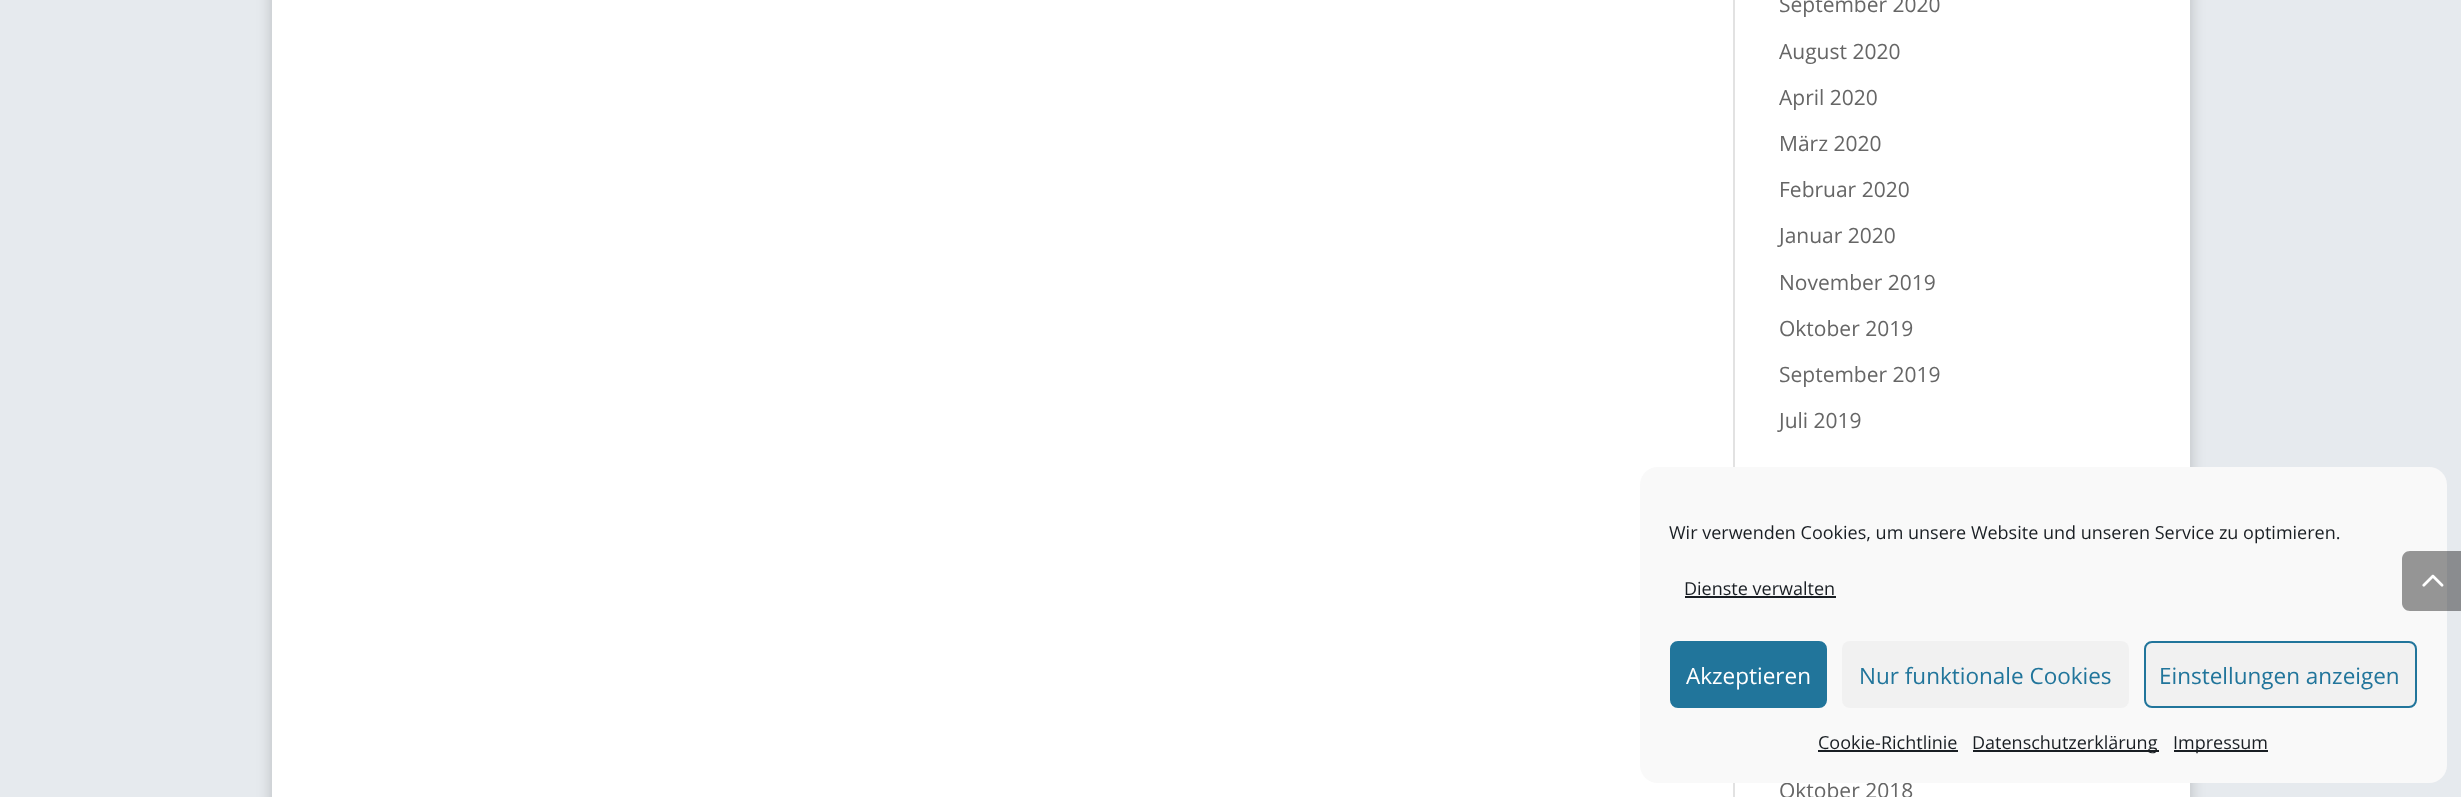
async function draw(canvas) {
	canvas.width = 2461;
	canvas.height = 797;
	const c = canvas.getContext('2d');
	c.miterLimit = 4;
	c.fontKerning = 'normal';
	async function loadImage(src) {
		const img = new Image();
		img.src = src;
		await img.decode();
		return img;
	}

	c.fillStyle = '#e6eaee';
	c.fillRect(0, 0, 2461, 797);
	c.fillStyle = '#00000033';
	c.filter = 'blur(7.5px)';
	c.beginPath();
	c.rect(272, -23, 1918, 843);
	c.fill();
	c.filter = 'none';
	c.fillStyle = '#fff';
	c.fillRect(272, 0, 1918, 797);
	c.fillStyle = '#e2e2e2';
	c.fillRect(1733, 0, 2, 797);
	c.font = '21px Open Sans';
	c.fillStyle = '#666';
	for (const [text, x, y] of [
		['September 2020', 1779, 12],
		['August 2020', 1779, 59],
		['April 2020', 1779, 105],
		['März 2020', 1779, 151],
		['Februar 2020', 1779, 197],
		['Januar 2020', 1779, 243],
		['November 2019', 1779, 290],
		['Oktober 2019', 1779, 336],
		['September 2019', 1779, 382],
		['Juli 2019', 1779, 428],
		['Oktober 2018', 1779, 798],
	]) {
		c.fillText(text, x, y);
	}
	c.fillStyle = '#f9f9f9';
	c.beginPath();
	c.roundRect(1640, 467, 807, 316, 18);
	c.fill();
	c.fillStyle = '#00000066';
	c.beginPath();
	c.moveTo(2410, 551);
	c.lineTo(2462, 551);
	c.lineTo(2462, 611);
	c.lineTo(2410, 611);
	c.bezierCurveTo(2405.5, 611, 2402, 607.5, 2402, 603);
	c.lineTo(2402, 559);
	c.bezierCurveTo(2402, 554.5, 2405.5, 551, 2410, 551);
	c.closePath();
	c.fill();
	c.drawImage(await loadImage('img1.png'), 2422, 574, 22, 13);
	c.font = '18px Open Sans';
	c.fillStyle = '#191e23';
	c.fillText('Wir verwenden Cookies, um unsere Website und unseren Service zu optimieren.', 1669, 539);
	c.fillText('Dienste verwalten', 1684, 595);
	c.fillRect(1685, 596, 151, 2);
	c.fillStyle = '#21759b';
	c.beginPath();
	c.roundRect(1671, 642, 155, 65, 7);
	c.fill();
	c.strokeStyle = '#21759b';
	c.lineWidth = 2;
	c.stroke();
	c.font = '22.5px Open Sans';
	c.fillStyle = '#fff';
	c.fillText('Akzeptieren', 1686, 684);
	c.fillStyle = '#f1f1f1';
	c.beginPath();
	c.roundRect(1842, 641, 287, 67, 8);
	c.fill();
	c.fillStyle = '#21759b';
	c.fillText('Nur funktionale Cookies', 1859, 684);
	c.fillStyle = '#f1f1f1';
	c.beginPath();
	c.roundRect(2145, 642, 271, 65, 7);
	c.fill();
	c.stroke();
	c.fillStyle = '#21759b';
	c.fillText('Einstellungen anzeigen', 2159, 684);
	c.font = '18px Open Sans';
	c.fillStyle = '#191e23';
	c.fillText('Cookie-Richtlinie', 1818, 749);
	c.fillRect(1818, 750, 140, 2);
	c.fillRect(1973, 750, 186, 2);
	c.fillText('Datenschutzerklärung', 1972, 749);
	c.fillRect(2174, 750, 94, 2);
	c.fillText('Impressum', 2173, 749);
}

draw(document.querySelector('canvas'));
